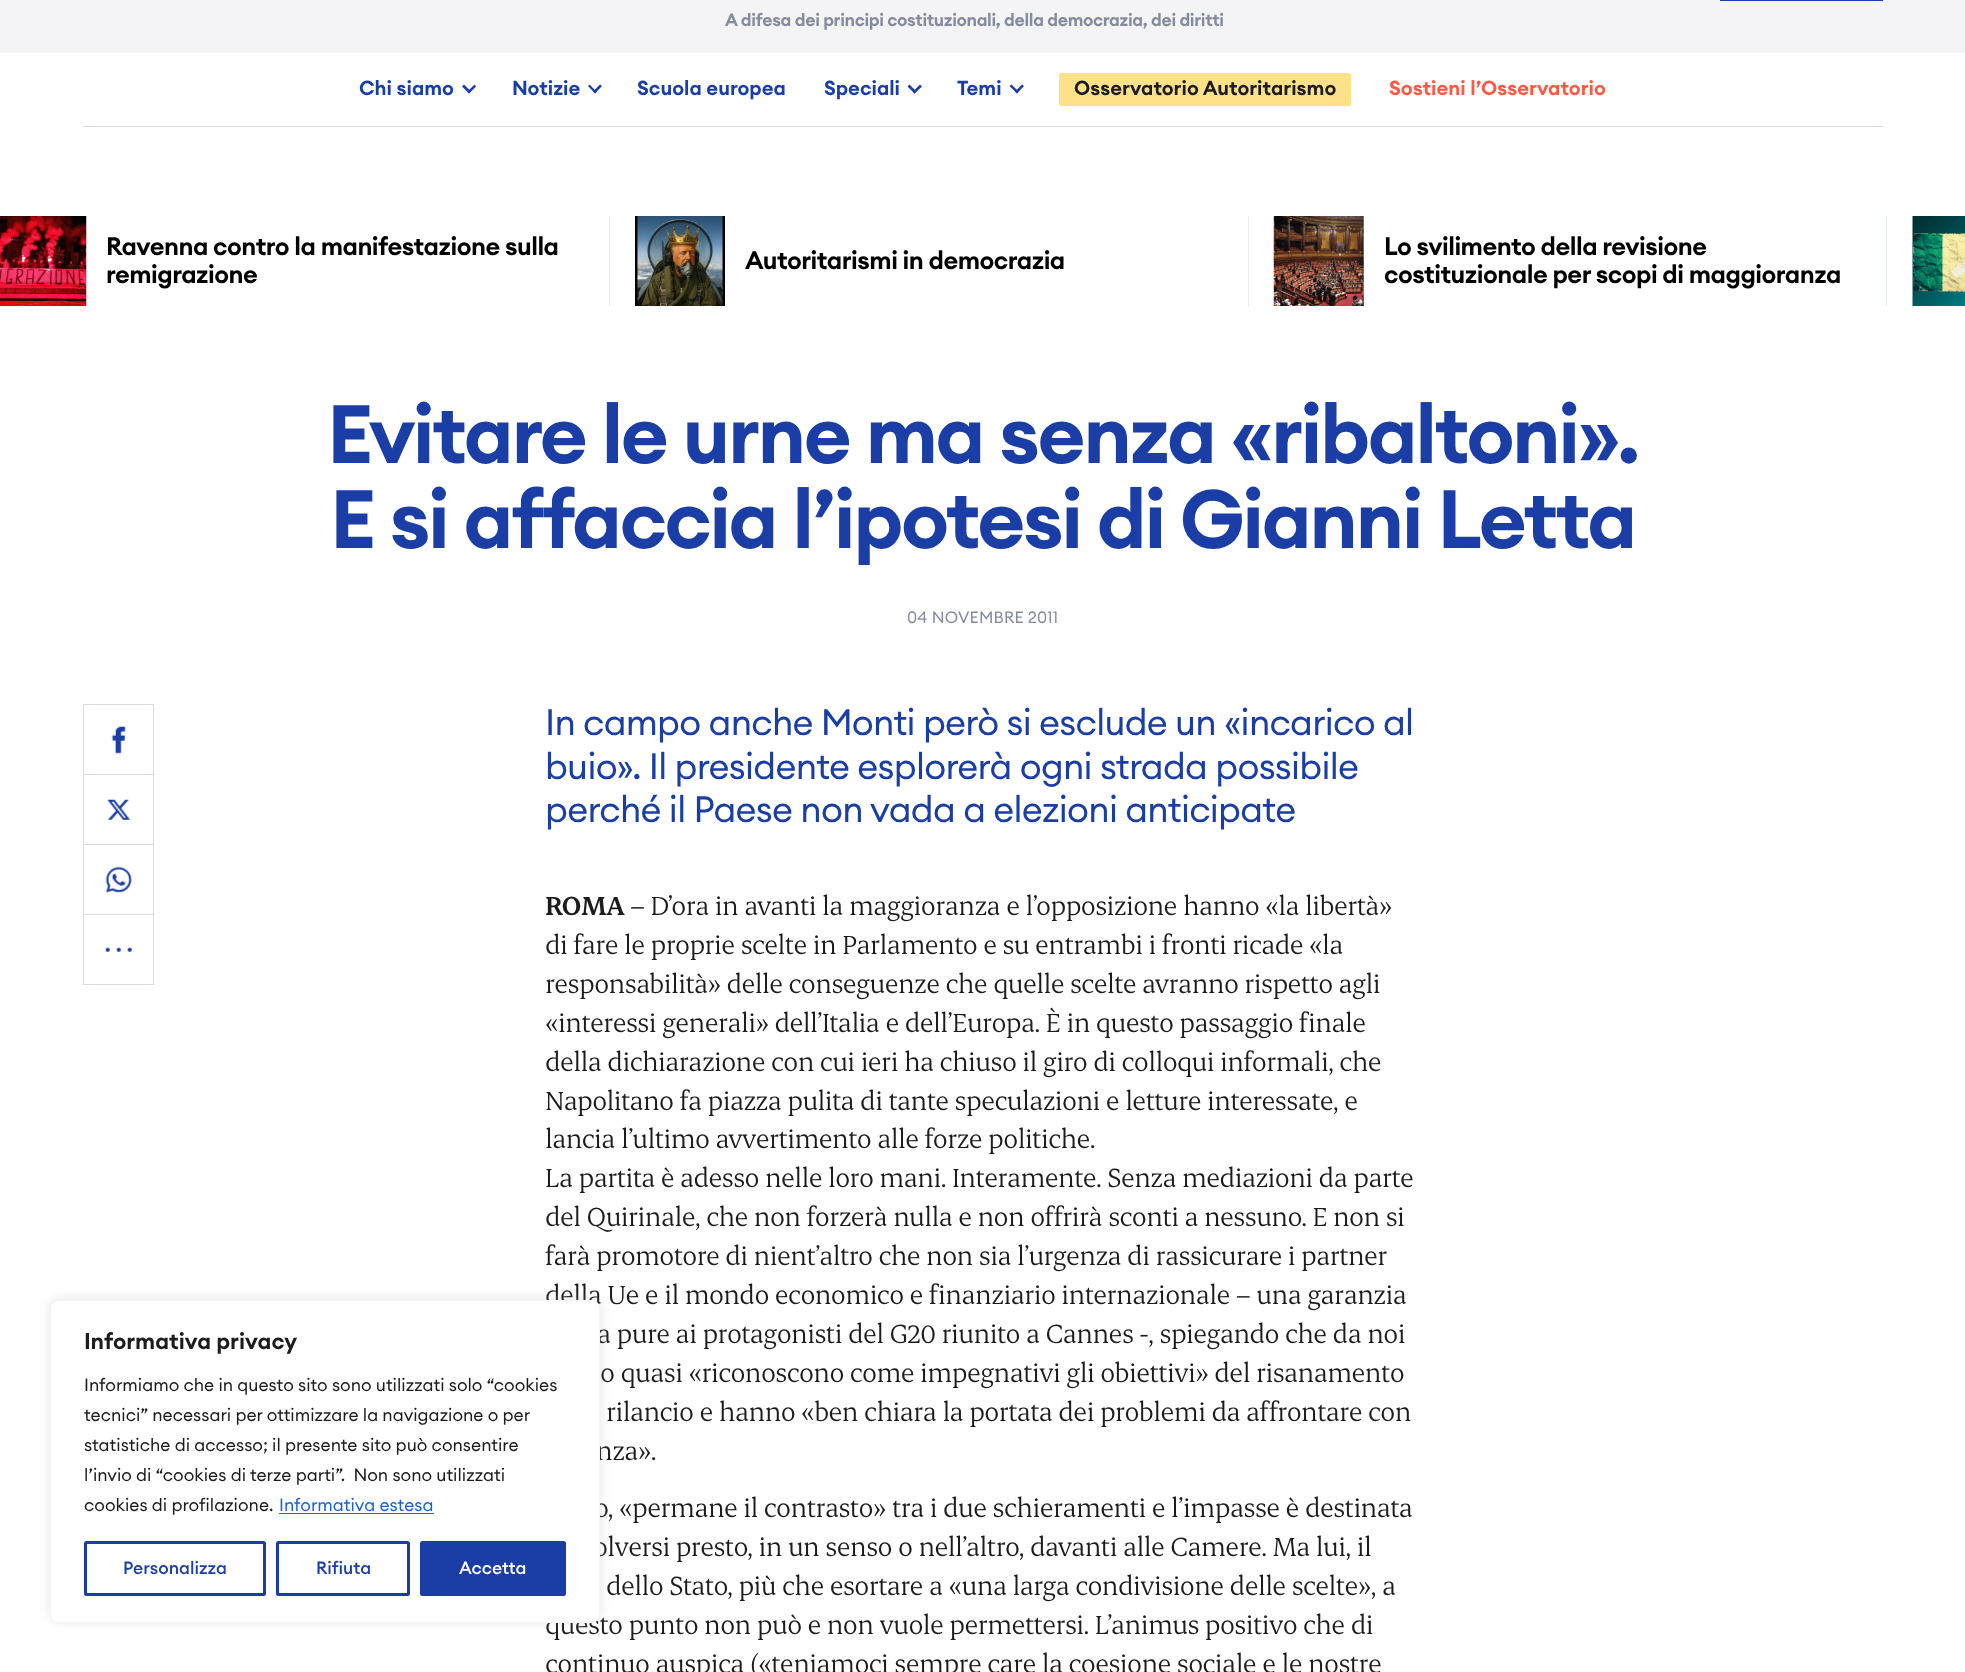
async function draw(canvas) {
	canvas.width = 1965;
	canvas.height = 1672;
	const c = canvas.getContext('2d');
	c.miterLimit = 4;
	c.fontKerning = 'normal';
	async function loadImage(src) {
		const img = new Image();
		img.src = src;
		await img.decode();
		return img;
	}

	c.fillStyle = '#fff';
	c.fillRect(0, 0, 1965, 1672);
	c.fillStyle = '#f4f4f6';
	c.fillRect(0, 0, 1965, 53);
	c.fillStyle = '#1b3ea6';
	c.fillRect(1720, 0, 163, 1);
	c.letterSpacing = '-0.35px';
	c.font = '600 17.5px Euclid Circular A';
	c.fillStyle = '#848b9e';
	c.fillText('A difesa dei principi costituzionali, della democrazia, dei diritti', 725, 26);
	c.fillStyle = '#d9dbe2';
	c.fillRect(83, 126, 1800, 1);
	c.letterSpacing = '0px';
	c.font = '600 20px Euclid Circular A';
	c.fillStyle = '#1b3ea6';
	c.fillText('Chi siamo', 359, 95);
	c.beginPath();
	c.moveTo(467.5, 91.5);
	c.lineTo(474.5, 84.5);
	c.lineTo(476, 86.5);
	c.lineTo(469, 93.5);
	c.closePath();
	c.fill();
	c.beginPath();
	c.moveTo(462, 86.5);
	c.lineTo(464, 84.5);
	c.lineTo(471, 91.5);
	c.lineTo(469, 93.5);
	c.closePath();
	c.fill();
	c.fillText('Notizie', 512, 95);
	c.beginPath();
	c.moveTo(593, 91.5);
	c.lineTo(600, 84.5);
	c.lineTo(602, 86);
	c.lineTo(595, 93.5);
	c.closePath();
	c.fill();
	c.beginPath();
	c.moveTo(588, 86);
	c.lineTo(589.5, 84.5);
	c.lineTo(596.5, 91.5);
	c.lineTo(595, 93.5);
	c.closePath();
	c.fill();
	c.fillText('Scuola europea', 637, 95);
	c.fillText('Speciali', 824, 95);
	c.beginPath();
	c.moveTo(913, 91.5);
	c.lineTo(920, 84.5);
	c.lineTo(922, 86.5);
	c.lineTo(914.5, 93.5);
	c.closePath();
	c.fill();
	c.beginPath();
	c.moveTo(907.5, 86.5);
	c.lineTo(909.5, 84.5);
	c.lineTo(916.5, 91.5);
	c.lineTo(914.5, 93.5);
	c.closePath();
	c.fill();
	c.fillText('Temi', 957, 95);
	c.beginPath();
	c.moveTo(1015, 91.5);
	c.lineTo(1022, 84.5);
	c.lineTo(1024, 86);
	c.lineTo(1017, 93.5);
	c.closePath();
	c.fill();
	c.beginPath();
	c.moveTo(1009.5, 86);
	c.lineTo(1011.5, 84.5);
	c.lineTo(1018.5, 91.5);
	c.lineTo(1017, 93.5);
	c.closePath();
	c.fill();
	c.fillStyle = '#ffe18a';
	c.beginPath();
	c.roundRect(1059, 73, 292, 33, 2.5);
	c.fill();
	c.fillStyle = '#1c1c1c';
	c.fillText('Osservatorio Autoritarismo', 1074, 95);
	c.fillStyle = '#ff5943';
	c.fillText('Sostieni l’Osservatorio', 1389, 95);
	c.fillStyle = '#e8ecf6';
	c.fillRect(609, 216, 1, 90);
	c.drawImage(await loadImage('img1.png'), 0, 216, 87, 90);
	c.letterSpacing = '-0.5px';
	c.font = '600 25px Euclid Circular A';
	c.fillStyle = '#000';
	c.fillText('Ravenna contro la manifestazione sulla', 106, 255);
	c.fillText('remigrazione', 106, 283);
	c.fillStyle = '#e8ecf6';
	c.fillRect(1248, 216, 1, 90);
	c.drawImage(await loadImage('img2.png'), 635, 216, 90, 90);
	c.fillStyle = '#000';
	c.fillText('Autoritarismi in democrazia', 745, 269);
	c.fillStyle = '#e8ecf6';
	c.fillRect(1886, 216, 1, 90);
	c.drawImage(await loadImage('img3.png'), 1273, 216, 91, 90);
	c.fillStyle = '#000';
	c.fillText('Lo svilimento della revisione', 1384, 255);
	c.fillText('costituzionale per scopi di maggioranza', 1384, 283);
	c.drawImage(await loadImage('img4.png'), 1912, 216, 53, 90);
	c.letterSpacing = '-2.45px';
	c.font = '600 81.25px Euclid Circular A';
	c.fillStyle = '#1b3ea6';
	c.fillText('Evitare le urne ma senza «ribaltoni».', 327, 463);
	c.fillText('E si affaccia l’ipotesi di Gianni Letta', 330, 548);
	c.letterSpacing = '0.2px';
	c.font = '16.25px Euclid Circular A';
	c.fillStyle = '#848b9e';
	c.fillText('04 NOVEMBRE 2011', 907, 623);
	c.strokeStyle = '#d9dbe2';
	c.strokeRect(83.5, 704.5, 70, 70);
	c.drawImage(await loadImage('img5.png'), 111, 726, 15, 28);
	c.strokeRect(83.5, 774.5, 70, 70);
	c.drawImage(await loadImage('img6.png'), 107, 799, 23, 21);
	c.strokeRect(83.5, 844.5, 70, 70);
	c.drawImage(await loadImage('img7.png'), 105, 866, 27, 27);
	c.strokeRect(83.5, 914.5, 70, 70);
	c.drawImage(await loadImage('img8.png'), 105, 947, 27, 5);
	c.letterSpacing = '-0.72px';
	c.font = '36.25px Euclid Circular A';
	c.fillStyle = '#1b3ea6';
	for (const [text, x, y] of [
		['In campo anche Monti però si esclude un «incarico al', 545, 735],
		['buio». Il presidente esplorerà ogni strada possibile', 545, 779],
		['perché il Paese non vada a elezioni anticipate', 545, 822],
	]) {
		c.fillText(text, x, y);
	}
	c.letterSpacing = '-0.6px';
	c.font = '600 30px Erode';
	c.fillStyle = '#1c1c1c';
	c.fillText('ROMA', 545, 915);
	c.font = '30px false';
	for (const [text, x, y] of [
		['– D’ora in avanti la maggioranza e l’opposizione hanno «la libertà»', 630, 915],
		['di fare le proprie scelte in Parlamento e su entrambi i fronti ricade «la', 545, 954],
		['responsabilità» delle conseguenze che quelle scelte avranno rispetto agli', 545, 993],
		['«interessi generali» dell’Italia e dell’Europa. È in questo passaggio finale', 545, 1032],
		['della dichiarazione con cui ieri ha chiuso il giro di colloqui informali, che', 545, 1071],
		['Napolitano fa piazza pulita di tante speculazioni e letture interessate, e', 545, 1110],
		['lancia l’ultimo avvertimento alle forze politiche.', 545, 1148],
		['La partita è adesso nelle loro mani. Interamente. Senza mediazioni da parte', 545, 1187],
		['del Quirinale, che non forzerà nulla e non offrirà sconti a nessuno. E non si', 545, 1226],
		['farà promotore di nient’altro che non sia l’urgenza di rassicurare i partner', 545, 1265],
		['della Ue e il mondo economico e finanziario internazionale – una garanzia', 545, 1304],
		['a pure ai protagonisti del G20 riunito a Cannes -, spiegando che da noi', 597, 1343],
		['o quasi «riconoscono come impegnativi gli obiettivi» del risanamento', 600, 1382],
		['rilancio e hanno «ben chiara la portata dei problemi da affrontare con', 606, 1421],
		['nza».', 596, 1460],
		['o, «permane il contrasto» tra i due schieramenti e l’impasse è destinata', 594, 1517],
		['olversi presto, in un senso o nell’altro, davanti alle Camere. Ma lui, il', 593, 1556],
		['dello Stato, più che esortare a «una larga condivisione delle scelte», a', 606, 1595],
		['questo punto non può e non vuole permettersi. L’animus positivo che di', 545, 1634],
		['continuo auspica («teniamoci sempre care la coesione sociale e le nostre', 545, 1673],
	]) {
		c.fillText(text, x, y);
	}
	c.fillStyle = '#acabab4d';
	c.filter = 'blur(6px)';
	c.beginPath();
	c.roundRect(50, 1299, 550, 322, 8);
	c.fill();
	c.filter = 'none';
	c.fillStyle = '#fff';
	c.beginPath();
	c.roundRect(50.5, 1300.5, 549, 322, 7.5);
	c.fill();
	c.strokeStyle = '#f4f4f4';
	c.stroke();
	c.letterSpacing = '0px';
	c.font = '600 22.5px Euclid Circular A';
	c.fillStyle = '#1c1c1c';
	c.fillText('Informativa privacy', 84, 1349);
	c.font = '17.5px Euclid Circular A';
	for (const [text, x, y] of [
		['Informiamo che in questo sito sono utilizzati solo “cookies', 84, 1391],
		['tecnici” necessari per ottimizzare la navigazione o per', 84, 1421],
		['statistiche di accesso; il presente sito può consentire', 84, 1451],
		['l’invio di “cookies di terze parti”.  Non sono utilizzati', 84, 1481],
		['cookies di profilazione.', 84, 1511],
	]) {
		c.fillText(text, x, y);
	}
	c.fillStyle = '#1863dc';
	c.fillText('Informativa estesa', 279, 1511);
	c.fillRect(279, 1513, 155, 1);
	c.beginPath();
	c.roundRect(85.5, 1542.5, 179, 52, 1);
	c.strokeStyle = '#1b3ea6';
	c.lineWidth = 3;
	c.stroke();
	c.font = '500 17.5px Euclid Circular A';
	c.fillStyle = '#1b3ea6';
	c.fillText('Personalizza', 123, 1574);
	c.beginPath();
	c.roundRect(277.5, 1542.5, 131, 52, 1);
	c.stroke();
	c.fillText('Rifiuta', 316, 1574);
	c.beginPath();
	c.roundRect(421.5, 1542.5, 143, 52, 1);
	c.fill();
	c.stroke();
	c.fillStyle = '#fff';
	c.fillText('Accetta', 459, 1574);
}

draw(document.querySelector('canvas'));
